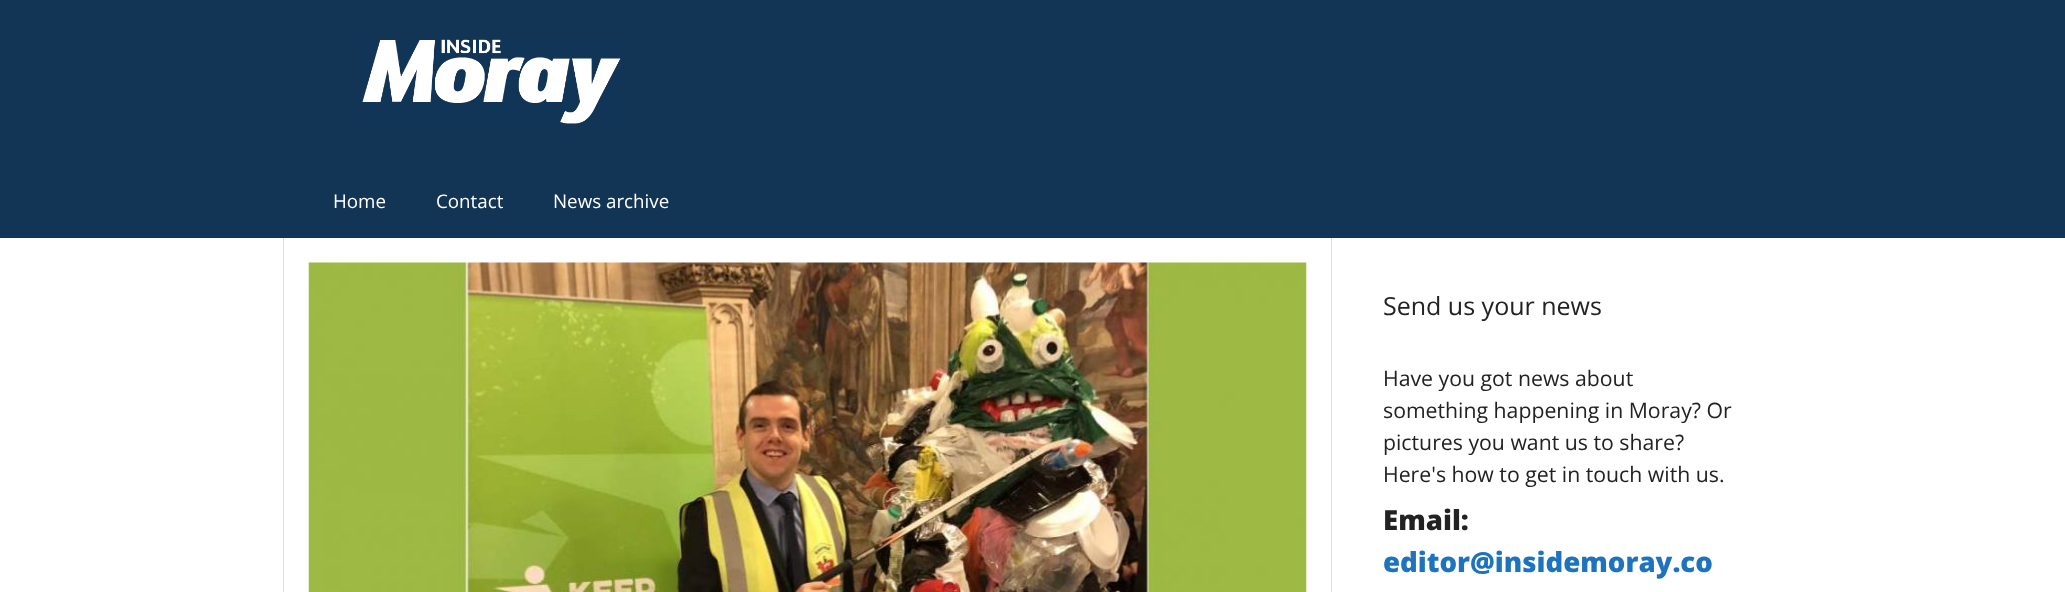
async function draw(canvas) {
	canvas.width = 2065;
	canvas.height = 592;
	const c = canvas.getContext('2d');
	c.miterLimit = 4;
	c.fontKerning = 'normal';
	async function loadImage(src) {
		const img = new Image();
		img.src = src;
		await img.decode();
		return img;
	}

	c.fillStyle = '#fff';
	c.fillRect(0, 0, 2065, 592);
	c.fillStyle = '#123555';
	c.fillRect(0, 0, 2065, 238);
	c.drawImage(await loadImage('img1.png'), 362, 39, 259, 85);
	c.font = '18.75px Open Sans';
	c.fillStyle = '#fff';
	for (const [text, x, y] of [
		['Home', 333, 208],
		['Contact', 436, 208],
		['News archive', 553, 208],
	]) {
		c.fillText(text, x, y);
	}
	c.fillStyle = '#ddd';
	c.fillRect(1331, 238, 1, 354);
	c.fillRect(283, 238, 1, 354);
	c.drawImage(await loadImage('img2.png'), 308, 262, 999, 330);
	c.font = '25px Open Sans';
	c.fillStyle = '#222';
	c.fillText('Send us your news', 1383, 315);
	c.font = '21.25px Open Sans';
	for (const [text, x, y] of [
		['Have you got news about', 1383, 386],
		['something happening in Moray? Or', 1383, 418],
		['pictures you want us to share?', 1383, 450],
		['Here\'s how to get in touch with us.', 1383, 482],
	]) {
		c.fillText(text, x, y);
	}
	c.font = '800 27.6px Open Sans';
	c.fillText('Email:', 1383, 530);
	c.fillStyle = '#1e73be';
	c.fillText('editor@insidemoray.co', 1383, 572);
}

draw(document.querySelector('canvas'));
